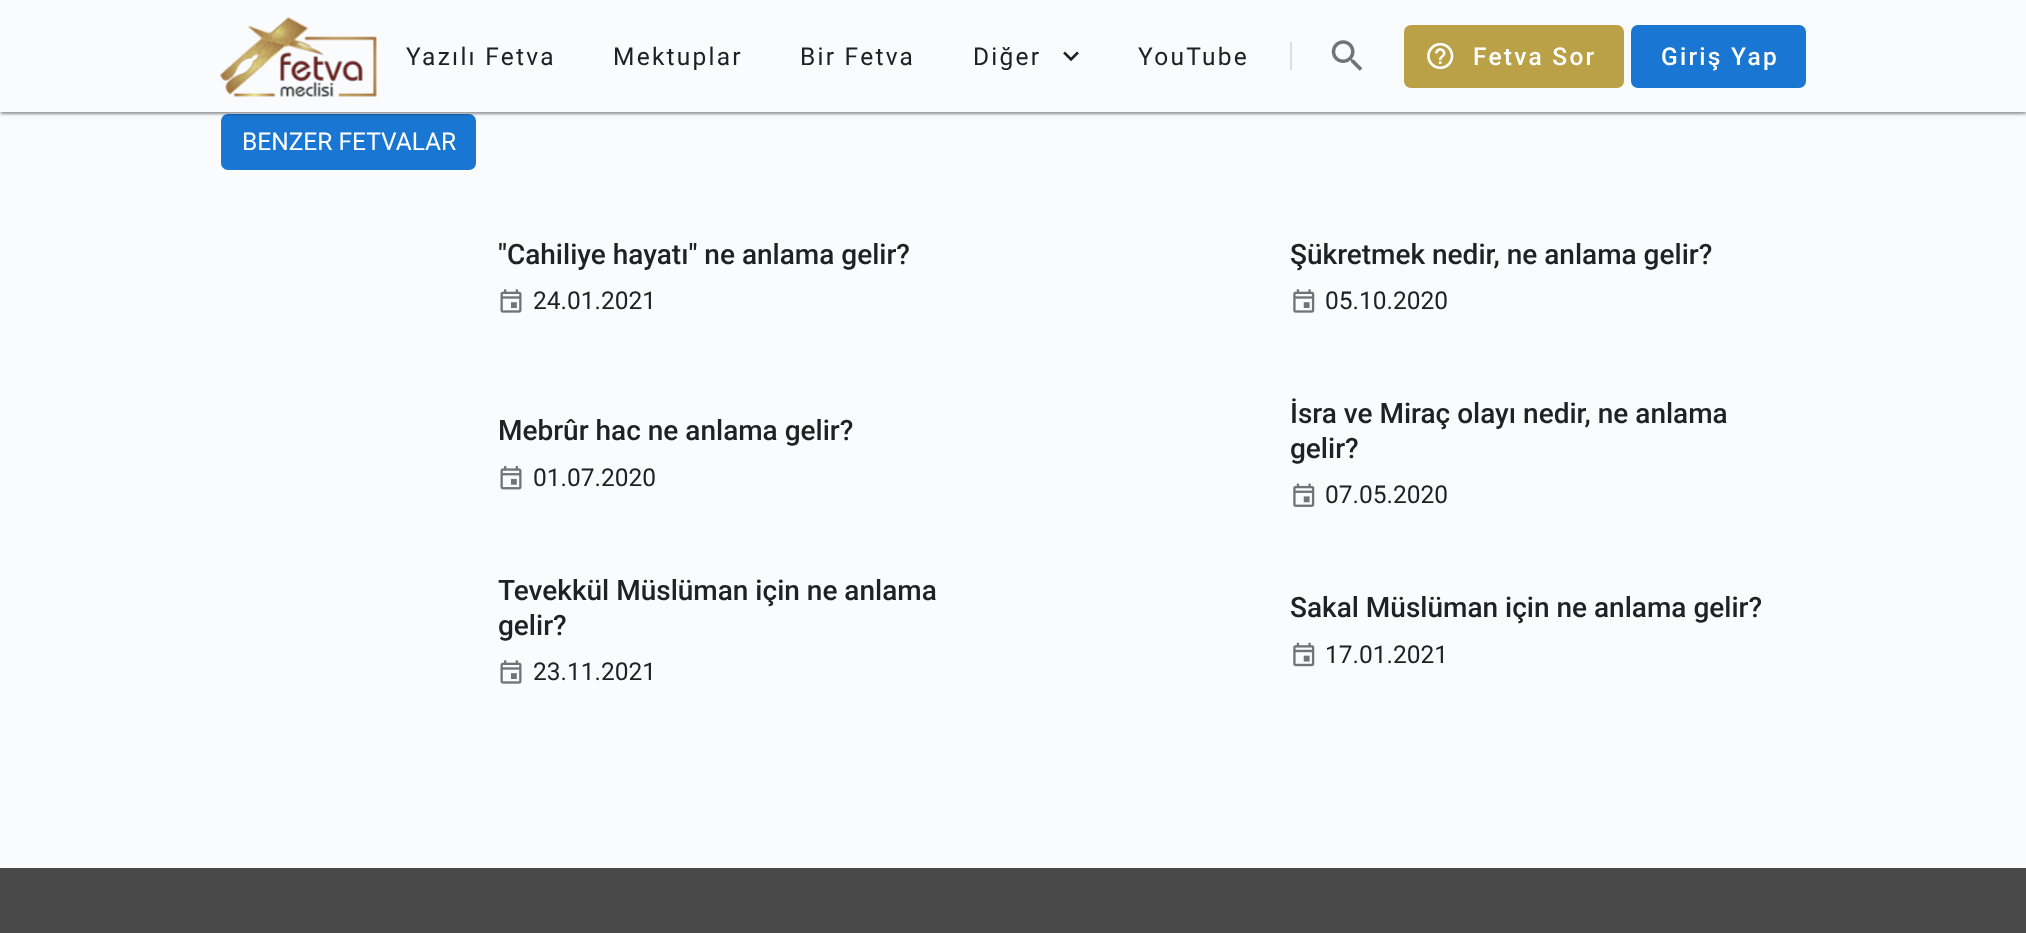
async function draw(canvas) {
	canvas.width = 2026;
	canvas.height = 933;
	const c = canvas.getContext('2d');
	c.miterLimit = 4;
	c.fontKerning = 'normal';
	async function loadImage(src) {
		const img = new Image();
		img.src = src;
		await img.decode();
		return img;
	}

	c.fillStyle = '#f9fbfd';
	c.fillRect(0, 0, 2026, 933);
	c.fillStyle = '#1976d2';
	c.beginPath();
	c.roundRect(221, 114, 255, 56, 7);
	c.fill();
	c.fillStyle = '#0000001f';
	c.filter = 'blur(2.5px)';
	c.beginPath();
	c.rect(0, 2, 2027, 112);
	c.fill();
	c.filter = 'none';
	c.fillStyle = '#00000024';
	c.filter = 'blur(1px)';
	c.beginPath();
	c.rect(0, 2, 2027, 112);
	c.fill();
	c.filter = 'none';
	c.fillStyle = '#00000033';
	c.filter = 'blur(1px)';
	c.beginPath();
	c.rect(2, 5, 2023, 109);
	c.fill();
	c.filter = 'none';
	c.fillStyle = '#f9fbfd';
	c.fillRect(0, 0, 2026, 112);
	c.drawImage(await loadImage('img1.png'), 220, 16, 157, 81);
	c.letterSpacing = '2.25px';
	c.font = '24.5px Roboto';
	c.fillStyle = '#202121';
	for (const [text, x, y] of [
		['Yazılı Fetva', 406, 65],
		['Mektuplar', 613, 65],
		['Bir Fetva', 800, 65],
		['Diğer', 973, 65],
	]) {
		c.fillText(text, x, y);
	}
	c.drawImage(await loadImage('img2.png'), 1063, 51, 16, 11);
	c.fillText('YouTube', 1138, 65);
	c.fillStyle = '#dbdddf';
	c.fillRect(1290, 42, 2, 28);
	c.drawImage(await loadImage('img3.png'), 1331, 40, 32, 31);
	c.fillStyle = '#baa147';
	c.beginPath();
	c.roundRect(1404, 25, 220, 63, 7);
	c.fill();
	c.drawImage(await loadImage('img4.png'), 1427, 42, 27, 28);
	c.font = '500 24.5px Roboto';
	c.fillStyle = '#fff';
	c.fillText('Fetva Sor', 1473, 65);
	c.fillStyle = '#1976d2';
	c.beginPath();
	c.roundRect(1631, 25, 175, 63, 7);
	c.fill();
	c.fillStyle = '#fff';
	c.fillText('Giriş Yap', 1661, 65);
	c.letterSpacing = '0px';
	c.font = '24.5px Roboto';
	c.fillText('BENZER FETVALAR', 242, 150);
	c.font = '500 28px Roboto';
	c.fillStyle = '#202121';
	c.fillText('"Cahiliye hayatı" ne anlama gelir?', 498, 264);
	c.drawImage(await loadImage('img5.png'), 500, 289, 22, 24);
	c.font = '24.5px Roboto';
	c.fillText('24.01.2021', 533, 309);
	c.font = '500 28px Roboto';
	c.fillText('Şükretmek nedir, ne anlama gelir?', 1290, 264);
	c.drawImage(await loadImage('img6.png'), 1293, 289, 22, 24);
	c.font = '24.5px Roboto';
	c.fillText('05.10.2020', 1325, 309);
	c.font = '500 28px Roboto';
	c.fillText('Mebrûr hac ne anlama gelir?', 498, 440);
	c.drawImage(await loadImage('img7.png'), 500, 466, 22, 24);
	c.font = '24.5px Roboto';
	c.fillText('01.07.2020', 533, 486);
	c.font = '500 28px Roboto';
	c.fillText('İsra ve Miraç olayı nedir, ne anlama', 1290, 423);
	c.fillText('gelir?', 1290, 458);
	c.drawImage(await loadImage('img8.png'), 1293, 483, 22, 24);
	c.font = '24.5px Roboto';
	c.fillText('07.05.2020', 1325, 503);
	c.font = '500 28px Roboto';
	c.fillText('Tevekkül Müslüman için ne anlama', 498, 600);
	c.fillText('gelir?', 498, 635);
	c.drawImage(await loadImage('img5.png'), 500, 660, 22, 24);
	c.font = '24.5px Roboto';
	c.fillText('23.11.2021', 533, 680);
	c.font = '500 28px Roboto';
	c.fillText('Sakal Müslüman için ne anlama gelir?', 1290, 617);
	c.drawImage(await loadImage('img9.png'), 1293, 642, 22, 25);
	c.font = '24.5px Roboto';
	c.fillText('17.01.2021', 1325, 663);
	c.fillStyle = '#484848';
	c.fillRect(0, 868, 2026, 65);
}

draw(document.querySelector('canvas'));
